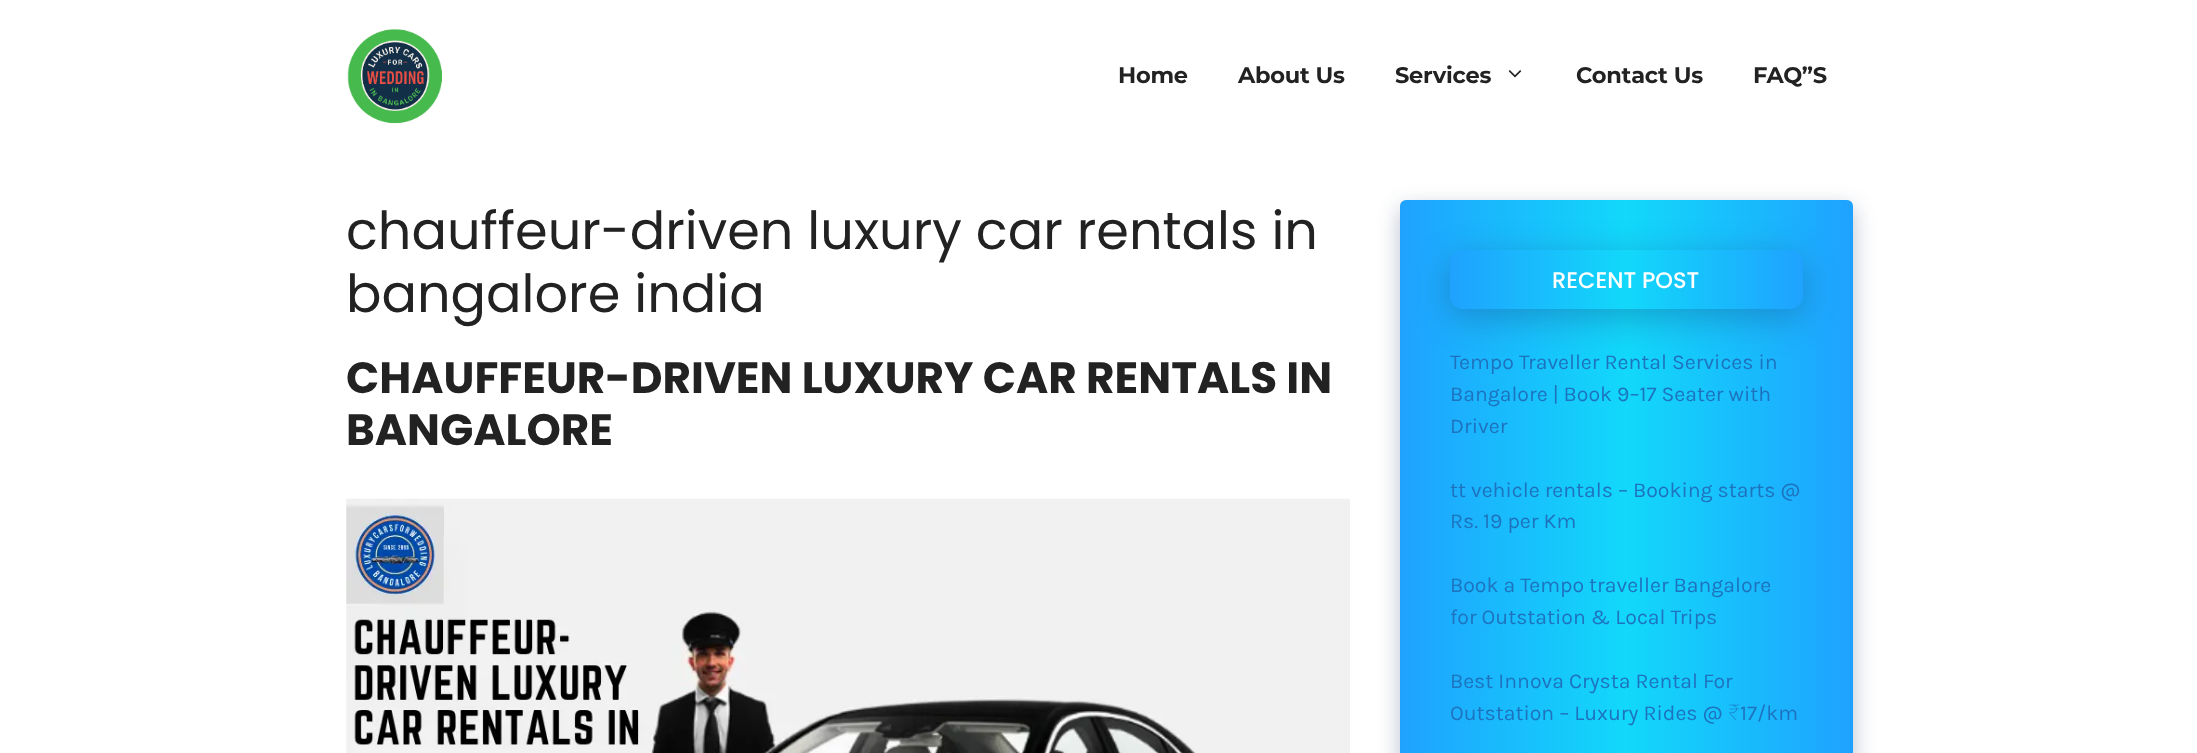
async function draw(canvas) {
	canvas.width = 2197;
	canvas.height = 753;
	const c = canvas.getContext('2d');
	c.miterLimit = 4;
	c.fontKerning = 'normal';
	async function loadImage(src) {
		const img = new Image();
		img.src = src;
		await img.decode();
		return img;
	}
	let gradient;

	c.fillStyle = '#fff';
	c.fillRect(0, 0, 2197, 753);
	c.drawImage(await loadImage('img1.png'), 347, 29, 95, 95);
	c.letterSpacing = '-0.25px';
	c.font = 'bold 22.5px Montserrat';
	c.fillStyle = '#222';
	for (const [text, x, y] of [
		['Home', 1118, 83],
		['About Us', 1238, 83],
		['Services', 1395, 83],
	]) {
		c.fillText(text, x, y);
	}
	c.drawImage(await loadImage('img2.png'), 1508, 70, 14, 8);
	c.fillText('Contact Us', 1576, 83);
	c.fillText('FAQ”S', 1753, 83);
	c.letterSpacing = '0px';
	c.font = '52.5px Poppins';
	c.fillText('chauffeur-driven luxury car rentals in', 346, 249);
	c.fillText('bangalore india', 346, 312);
	c.font = 'bold 43.75px Poppins';
	c.fillText('CHAUFFEUR-DRIVEN LUXURY CAR RENTALS IN', 346, 393);
	c.fillText('BANGALORE', 346, 445);
	c.drawImage(await loadImage('img3.png'), 346, 498, 1004, 255);
	c.fillStyle = '#172b634d';
	c.filter = 'blur(11px)';
	c.beginPath();
	c.roundRect(1400, 208, 453, 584, 6);
	c.fill();
	c.filter = 'none';
	gradient = c.createLinearGradient(1400, 538, 1853, 538);
	gradient.addColorStop(0, '#1fa2ff');
	gradient.addColorStop(0.5, '#12d8fa');
	gradient.addColorStop(1, '#1fa2ff');
	c.fillStyle = gradient;
	c.beginPath();
	c.roundRect(1400, 200, 453, 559, 6);
	c.fill();
	c.fillStyle = '#172b634d';
	c.filter = 'blur(17.5px)';
	c.beginPath();
	c.roundRect(1450, 259, 353, 59, 13);
	c.fill();
	c.filter = 'none';
	gradient = c.createLinearGradient(1450, 279, 1803, 279);
	gradient.addColorStop(0, '#1fa2ff');
	gradient.addColorStop(0.5, '#12d8fa');
	gradient.addColorStop(1, '#1fa2ff');
	c.fillStyle = gradient;
	c.beginPath();
	c.roundRect(1450, 250, 353, 59, 13);
	c.fill();
	c.font = '500 22.5px Poppins';
	c.fillStyle = '#fff';
	c.fillText('RECENT POST', 1552, 288);
	c.font = '21.25px Karla';
	c.fillStyle = '#1e73be';
	for (const [text, x, y] of [
		['Tempo Traveller Rental Services in', 1450, 369],
		['Bangalore | Book 9–17 Seater with', 1450, 401],
		['Driver', 1450, 433],
		['tt vehicle rentals – Booking starts @', 1450, 497],
		['Rs. 19 per Km', 1450, 528],
		['Book a Tempo traveller Bangalore', 1450, 592],
		['for Outstation & Local Trips', 1450, 624],
		['Best Innova Crysta Rental For', 1450, 688],
		['Outstation – Luxury Rides @', 1450, 720],
	]) {
		c.fillText(text, x, y);
	}
	c.font = '100 21.25px Noto Sans';
	c.fillText('₹', 1728, 720);
	c.font = '21.25px Karla';
	c.fillText('17/km', 1740, 720);
}

draw(document.querySelector('canvas'));
